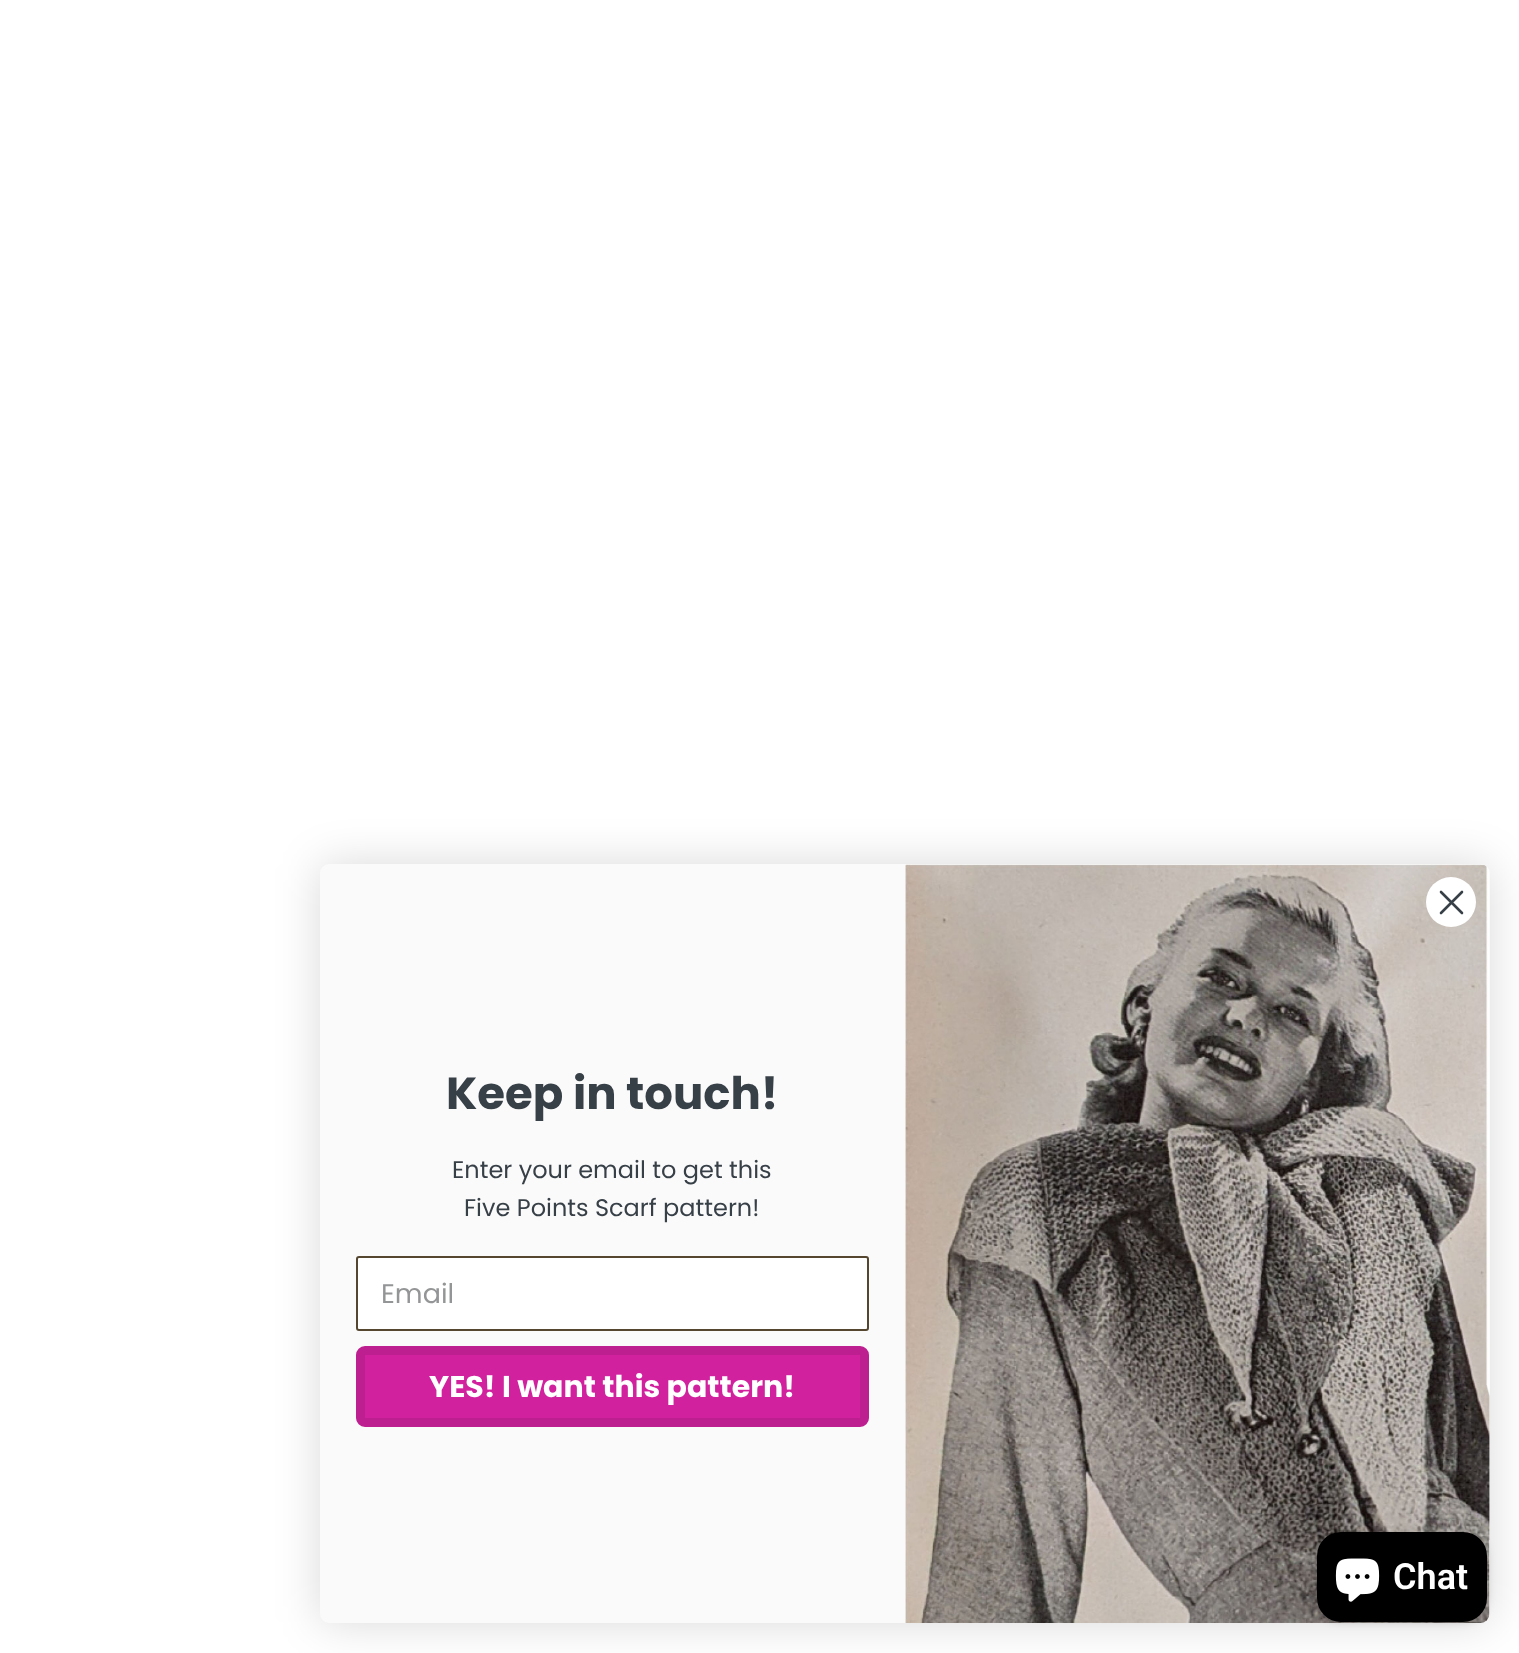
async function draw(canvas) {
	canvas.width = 1519;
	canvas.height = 1653;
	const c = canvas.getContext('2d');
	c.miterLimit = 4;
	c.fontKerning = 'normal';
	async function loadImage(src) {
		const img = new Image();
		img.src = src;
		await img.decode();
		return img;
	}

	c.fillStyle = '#fff';
	c.fillRect(0, 0, 1519, 1653);
	c.fillStyle = '#00000026';
	c.filter = 'blur(22.5px)';
	c.beginPath();
	c.roundRect(320, 864, 1170, 759, 9);
	c.fill();
	c.filter = 'none';
	c.fillStyle = '#fafafa';
	c.beginPath();
	c.roundRect(320, 864, 1170, 759, 9);
	c.fill();
	c.drawImage(await loadImage('img1.png'), 905, 864, 585, 759);
	c.fillStyle = '#fff';
	c.beginPath();
	c.arc(1451, 902, 25, 0, 2 * Math.PI);
	c.fill();
	c.beginPath();
	c.moveTo(1441, 892);
	c.lineTo(1462, 913);
	c.moveTo(1441, 913);
	c.lineTo(1462, 892);
	c.closePath();
	c.strokeStyle = '#373f47';
	c.lineWidth = 2.6;
	c.lineCap = 'round';
	c.lineJoin = 'round';
	c.stroke();
	c.font = 'bold 45px Poppins';
	c.fillStyle = '#373f47';
	c.fillText('Keep in touch!', 446, 1109);
	c.font = '24px Poppins';
	c.fillText('Enter your email to get this', 452, 1178);
	c.fillText('Five Points Scarf pattern!', 464, 1216);
	c.fillStyle = '#fff';
	c.beginPath();
	c.roundRect(357, 1257, 511, 73, 2);
	c.fill();
	c.strokeStyle = '#54462f';
	c.lineWidth = 2;
	c.lineJoin = 'miter';
	c.stroke();
	c.font = '27px Poppins';
	c.fillStyle = '#949596';
	c.fillText('Email', 381, 1303);
	c.fillStyle = '#d1219e';
	c.beginPath();
	c.roundRect(360.5, 1350.5, 504, 72, 4.5);
	c.fill();
	c.strokeStyle = '#be1f90';
	c.lineWidth = 9;
	c.stroke();
	c.font = 'bold 30px Poppins';
	c.fillStyle = '#fff';
	c.fillText('YES! I want this pattern!', 429, 1397);
	c.fillStyle = '#00000026';
	c.filter = 'blur(4px)';
	c.beginPath();
	c.roundRect(1317, 1532, 170, 90, 24);
	c.fill();
	c.filter = 'none';
	c.fillStyle = '#000';
	c.beginPath();
	c.roundRect(1317, 1532, 170, 90, 24);
	c.fill();
	c.drawImage(await loadImage('img2.png'), 1335, 1558, 45, 44);
	c.font = '600 36px Roboto';
	c.fillStyle = '#fff';
	c.fillText('Chat', 1393, 1589);
}

draw(document.querySelector('canvas'));
